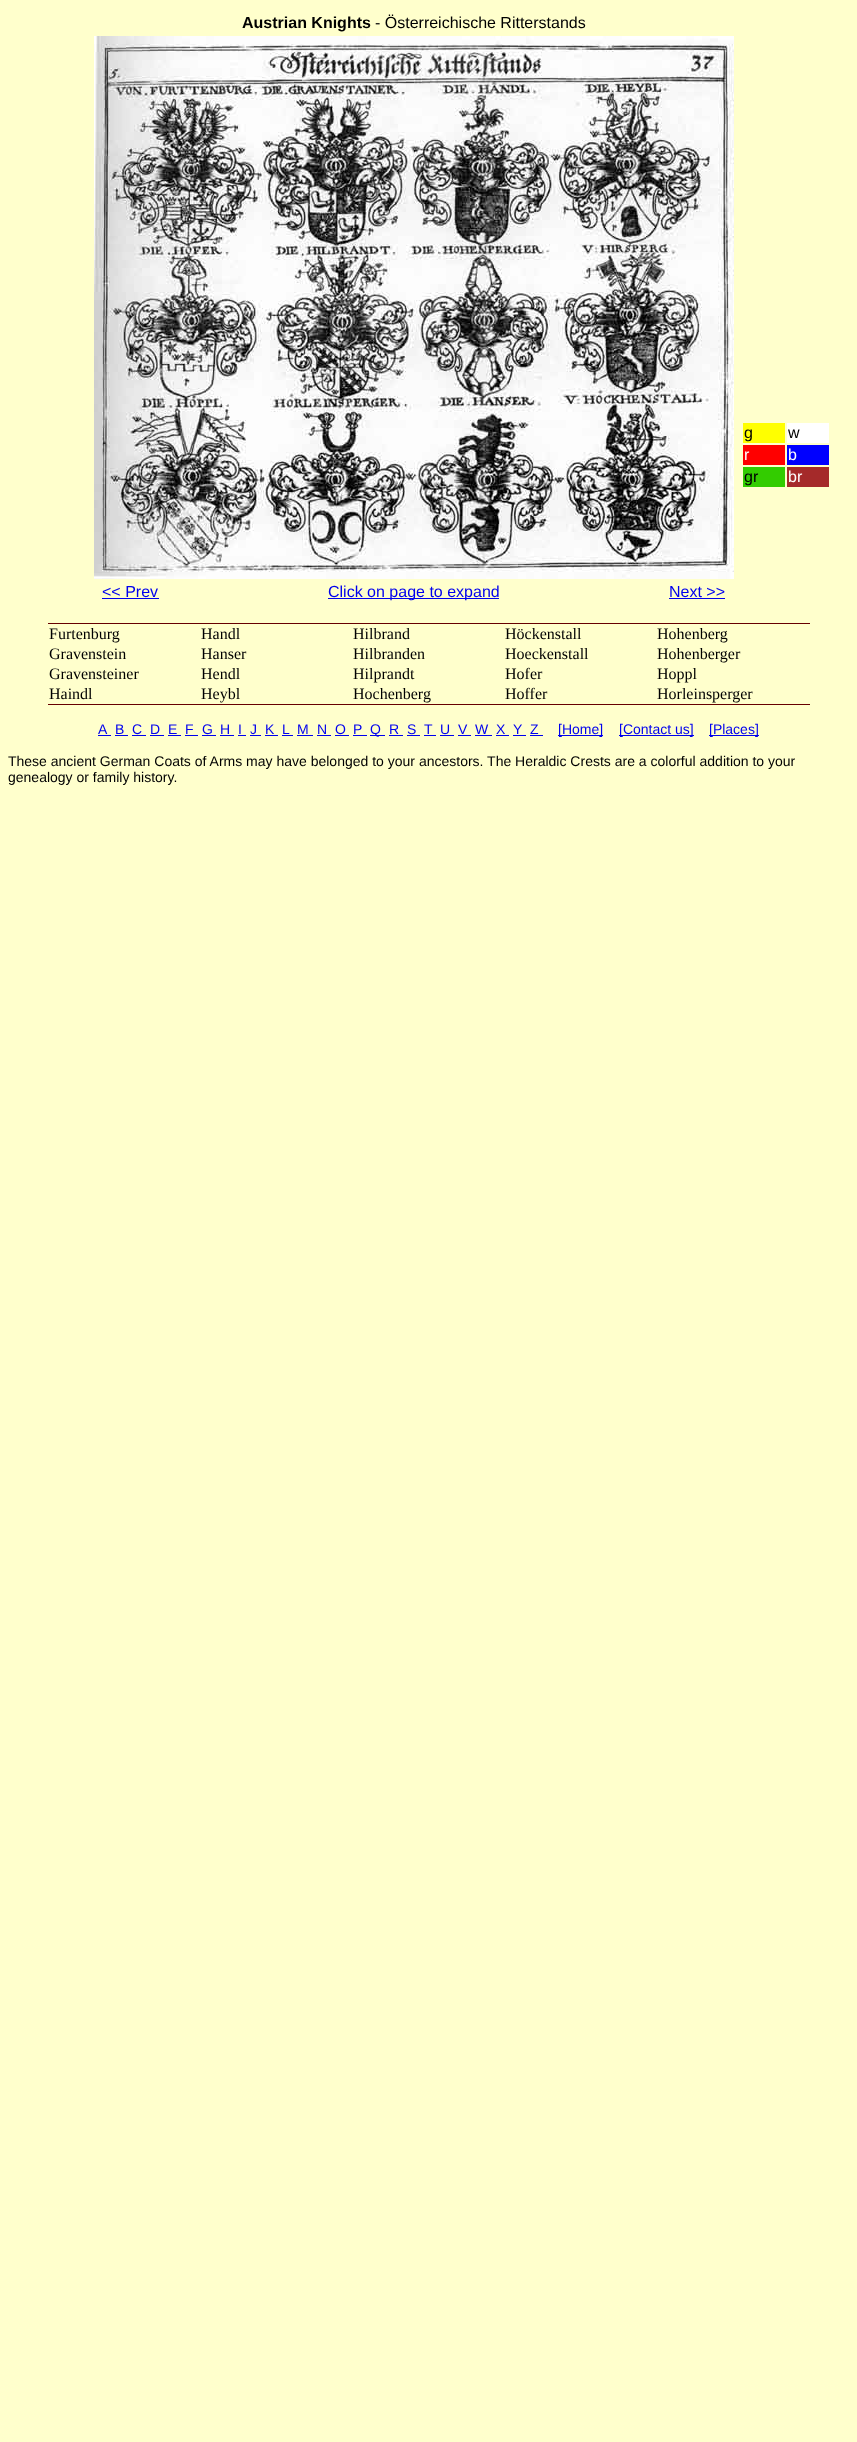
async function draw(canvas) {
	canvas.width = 857;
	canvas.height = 2442;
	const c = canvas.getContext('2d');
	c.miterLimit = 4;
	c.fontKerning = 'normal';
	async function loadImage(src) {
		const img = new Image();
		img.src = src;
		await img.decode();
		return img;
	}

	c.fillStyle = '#ffc';
	c.fillRect(0, 0, 857, 2442);
	c.font = 'bold 16px Liberation Sans';
	c.fillStyle = '#000';
	c.fillText('Austrian Knights', 242, 28);
	c.font = '16px Liberation Sans';
	c.fillText('- Österreichische Ritterstands', 375, 28);
	c.drawImage(await loadImage('img1.png'), 94, 36, 640, 543);
	c.fillStyle = '#00e';
	c.fillText('<< Prev', 102, 597);
	c.fillRect(102, 598, 57, 1);
	c.fillRect(328, 598, 171, 1);
	c.fillText('Click on page to expand', 328, 597);
	c.fillText('Next >>', 669, 597);
	c.fillRect(669, 598, 56, 1);
	c.fillStyle = '#ff0';
	c.fillRect(743, 423, 42, 20);
	c.fillStyle = '#000';
	c.fillText('g', 744, 438);
	c.fillStyle = '#fff';
	c.fillRect(787, 423, 42, 20);
	c.fillStyle = '#000';
	c.fillText('w', 788, 438);
	c.fillStyle = '#f00';
	c.fillRect(743, 445, 42, 20);
	c.fillStyle = '#fff';
	c.fillText('r', 744, 460);
	c.fillStyle = '#00f';
	c.fillRect(787, 445, 42, 20);
	c.fillStyle = '#fff';
	c.fillText('b', 788, 460);
	c.fillStyle = '#3c0';
	c.fillRect(743, 467, 42, 20);
	c.fillStyle = '#000';
	c.fillText('gr', 744, 482);
	c.fillStyle = '#a52a2a';
	c.fillRect(787, 467, 42, 20);
	c.fillStyle = '#fff';
	c.fillText('br', 788, 482);
	c.fillStyle = '#600';
	c.fillRect(48, 623, 762, 1);
	c.fillRect(48, 704, 762, 1);
	c.font = '16px Liberation Serif';
	c.fillStyle = '#000';
	for (const [text, x, y] of [
		['Furtenburg', 49, 639],
		['Handl', 201, 639],
		['Hilbrand', 353, 639],
		['Höckenstall', 505, 639],
		['Hohenberg', 657, 639],
		['Gravenstein', 49, 659],
		['Hanser', 201, 659],
		['Hilbranden', 353, 659],
		['Hoeckenstall', 505, 659],
		['Hohenberger', 657, 659],
		['Gravensteiner', 49, 679],
		['Hendl', 201, 679],
		['Hilprandt', 353, 679],
		['Hofer', 505, 679],
		['Hoppl', 657, 679],
		['Haindl', 49, 699],
		['Heybl', 201, 699],
		['Hochenberg', 353, 699],
		['Hoffer', 505, 699],
		['Horleinsperger', 657, 699],
	]) {
		c.fillText(text, x, y);
	}
	c.font = '14px Liberation Sans';
	c.fillStyle = '#00e';
	c.fillText('A', 98, 734);
	c.fillRect(98, 735, 13, 1);
	c.fillText('B', 115, 734);
	c.fillRect(115, 735, 13, 1);
	c.fillText('C', 132, 734);
	c.fillRect(132, 735, 14, 1);
	c.fillText('D', 150, 734);
	c.fillRect(150, 735, 14, 1);
	c.fillText('E', 168, 734);
	c.fillRect(168, 735, 13, 1);
	c.fillText('F', 185, 734);
	c.fillRect(185, 735, 13, 1);
	c.fillText('G', 202, 734);
	c.fillRect(202, 735, 14, 1);
	c.fillText('H', 220, 734);
	c.fillRect(220, 735, 14, 1);
	c.fillText('I', 238, 734);
	c.fillRect(238, 735, 8, 1);
	c.fillText('J', 250, 734);
	c.fillRect(250, 735, 11, 1);
	c.fillText('K', 265, 734);
	c.fillRect(265, 735, 13, 1);
	c.fillText('L', 282, 734);
	c.fillRect(282, 735, 11, 1);
	c.fillText('M', 297, 734);
	c.fillRect(297, 735, 16, 1);
	c.fillText('N', 317, 734);
	c.fillRect(317, 735, 14, 1);
	c.fillText('O', 335, 734);
	c.fillRect(335, 735, 14, 1);
	c.fillText('P', 353, 734);
	c.fillRect(353, 735, 14, 1);
	c.fillRect(370, 735, 15, 1);
	c.fillText('Q', 370, 734);
	c.fillText('R', 389, 734);
	c.fillRect(389, 735, 14, 1);
	c.fillText('S', 407, 734);
	c.fillRect(407, 735, 13, 1);
	c.fillText('T', 424, 734);
	c.fillRect(424, 735, 12, 1);
	c.fillText('U', 440, 734);
	c.fillRect(440, 735, 14, 1);
	c.fillText('V', 458, 734);
	c.fillRect(458, 735, 13, 1);
	c.fillText('W', 475, 734);
	c.fillRect(475, 735, 17, 1);
	c.fillText('X', 496, 734);
	c.fillRect(496, 735, 13, 1);
	c.fillText('Y', 513, 734);
	c.fillRect(513, 735, 13, 1);
	c.fillText('Z', 530, 734);
	c.fillRect(530, 735, 13, 1);
	c.fillRect(558, 735, 45, 1);
	c.fillText('[Home]', 558, 734);
	c.fillRect(619, 735, 75, 1);
	c.fillText('[Contact us]', 619, 734);
	c.fillRect(709, 735, 50, 1);
	c.fillText('[Places]', 709, 734);
	c.fillStyle = '#000';
	c.fillText('These ancient German Coats of Arms may have belonged to your ancestors. The Heraldic Crests are a colorful addition to your', 8, 766);
	c.fillText('genealogy or family history.', 8, 782);
}

draw(document.querySelector('canvas'));
